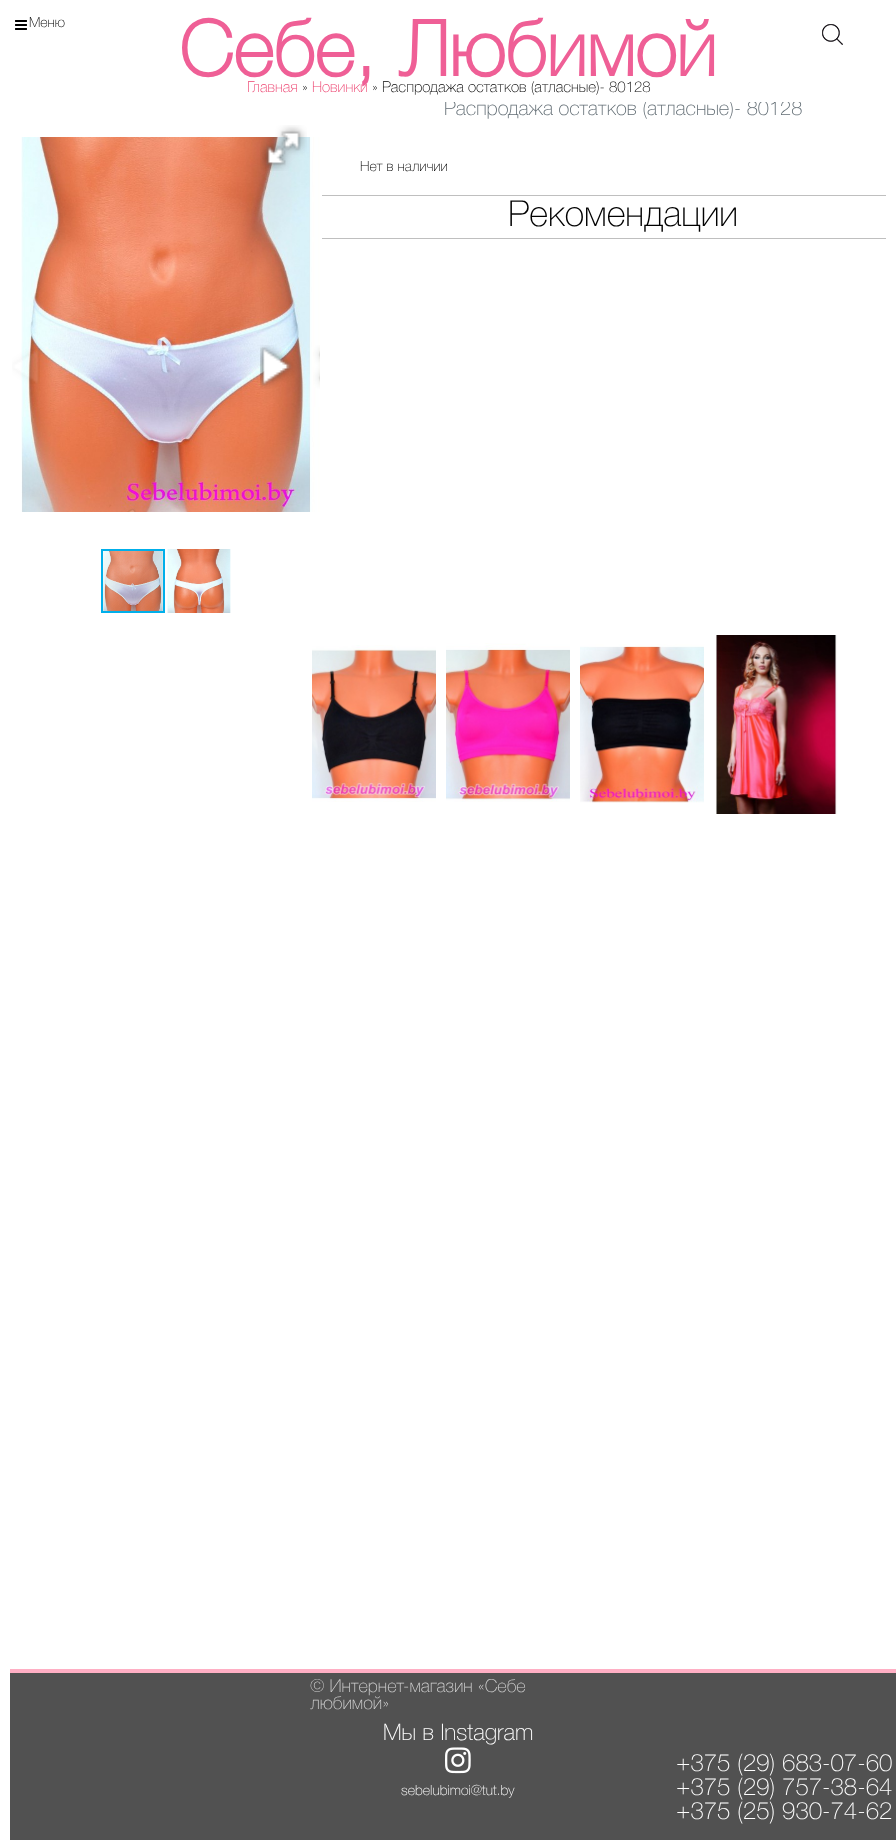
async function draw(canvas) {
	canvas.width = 896;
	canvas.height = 1840;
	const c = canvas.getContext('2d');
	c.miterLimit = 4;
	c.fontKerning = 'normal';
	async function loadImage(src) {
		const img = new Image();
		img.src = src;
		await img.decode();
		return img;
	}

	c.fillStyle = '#fff';
	c.fillRect(0, 0, 896, 1840);
	c.drawImage(await loadImage('img1.png'), 15, 20, 12, 10);
	c.font = '100 14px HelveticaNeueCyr';
	c.fillStyle = '#000';
	c.fillText('Меню', 29, 27);
	c.font = '100 15px HelveticaNeueCyr';
	c.fillStyle = '#ed4370';
	c.fillText('Главная', 247, 92);
	c.fillText('Новинки', 312, 92);
	c.font = 'bold 77px HelveticaNeueCyr';
	c.fillStyle = '#ef5f96';
	c.fillText('Себе, Любимой', 179, 76);
	c.drawImage(await loadImage('img2.png'), 822, 24, 21, 21);
	c.font = '100 15px HelveticaNeueCyr';
	c.fillStyle = '#000';
	c.fillText('»', 302, 92);
	c.fillText('» Распродажа остатков (атласные)- 80128', 372, 92);
	c.drawImage(await loadImage('img4.png'), 21, 137, 301, 375);
	c.drawImage(await loadImage('img3.png'), 260, 125, 47, 46);
	c.drawImage(await loadImage('img5.png'), 12, 349, 28, 35);
	c.drawImage(await loadImage('img6.png'), 260, 345, 60, 44);
	c.drawImage(await loadImage('img8.png'), 103, 551, 60, 60);
	c.strokeStyle = '#00afea';
	c.lineWidth = 2;
	c.strokeRect(102, 550, 62, 62);
	c.drawImage(await loadImage('img7.png'), 167, 549, 64, 64);
	c.save();
	c.beginPath();
	c.rect(10, 102, 876, 717);
	c.clip();
	c.font = '100 20px HelveticaNeueCyr';
	c.fillStyle = '#636e75';
	c.fillText('Распродажа остатков (атласные)- 80128', 444, 115);
	c.restore();
	c.font = '100 14px HelveticaNeueCyr';
	c.fillText('Нет в наличии', 360, 171);
	c.fillStyle = '#bfbfbf';
	c.fillRect(322, 195, 564, 1);
	c.fillRect(322, 238, 564, 1);
	c.font = '100 36px HelveticaNeueCyr';
	c.fillStyle = '#000';
	c.fillText('Рекомендации', 508, 226);
	c.drawImage(await loadImage('img9.png'), 312, 645, 124, 157);
	c.drawImage(await loadImage('img10.png'), 446, 643, 124, 159);
	c.drawImage(await loadImage('img11.png'), 580, 644, 124, 159);
	c.drawImage(await loadImage('img12.png'), 715, 635, 123, 179);
	c.fillStyle = '#515151';
	c.fillRect(10, 1673, 886, 167);
	c.fillStyle = '#ffafc4';
	c.fillRect(10, 1669, 886, 4);
	c.font = '100 18px HelveticaNeueCyr';
	c.fillStyle = '#d0d0d0';
	c.fillText('© Интернет-магазин «Себе', 310, 1692);
	c.fillText('любимой»', 310, 1709);
	c.font = '100 23px HelveticaNeueCyr';
	c.fillStyle = '#fff';
	c.fillText('Мы в Instagram', 383, 1740);
	c.drawImage(await loadImage('img13.png'), 445, 1747, 26, 27);
	c.font = '100 14px HelveticaNeueCyr';
	c.fillText('sebelubimoi@tut.by', 401, 1795);
	c.font = '100 24px HelveticaNeueCyr';
	for (const [text, x, y] of [
		['+375 (29) 683-07-60', 676, 1771],
		['+375 (29) 757-38-64', 676, 1795],
		['+375 (25) 930-74-62', 676, 1819],
	]) {
		c.fillText(text, x, y);
	}
}

draw(document.querySelector('canvas'));
